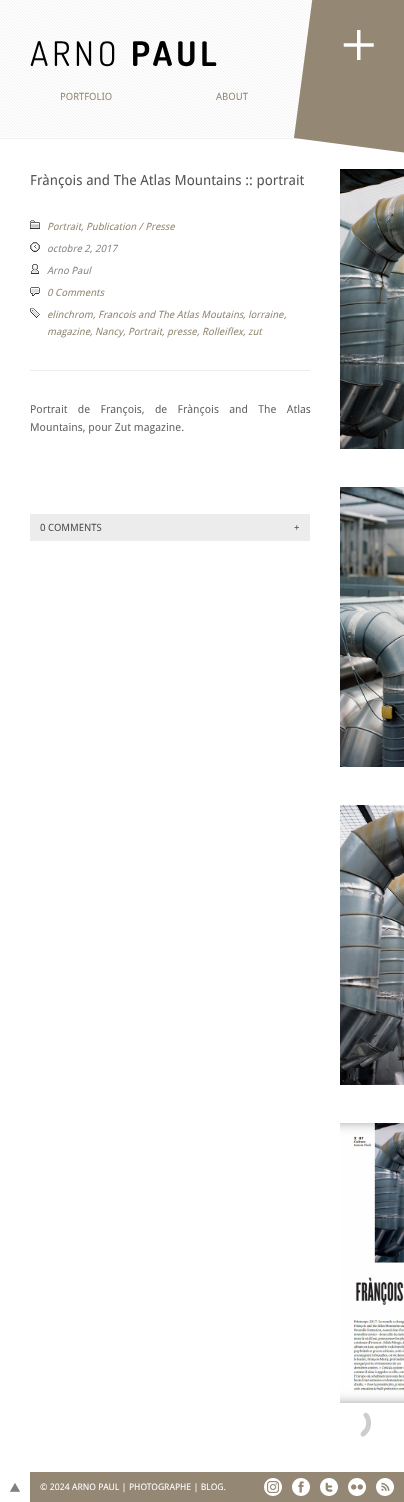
async function draw(canvas) {
	canvas.width = 404;
	canvas.height = 1502;
	const c = canvas.getContext('2d');
	c.miterLimit = 4;
	c.fontKerning = 'normal';
	async function loadImage(src) {
		const img = new Image();
		img.src = src;
		await img.decode();
		return img;
	}

	c.fillStyle = '#fff';
	c.fillRect(0, 0, 404, 1502);
	c.fillStyle = '#f2f2f2';
	c.fillRect(0, 138, 302, 1);
	c.drawImage(await loadImage('img1.png'), 0, 0, 313, 137);
	c.letterSpacing = '4px';
	c.font = '34px Dosis';
	c.fillStyle = '#000';
	c.fillText('ARNO', 30, 66);
	c.font = 'bold 34px Dosis';
	c.fillText('PAUL', 131, 66);
	c.letterSpacing = '0px';
	c.font = '10px Droid Sans';
	c.fillStyle = '#948874';
	c.fillText('PORTFOLIO', 60, 100);
	c.fillText('ABOUT', 216, 100);
	c.beginPath();
	c.moveTo(336, -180);
	c.lineTo(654, -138);
	c.lineTo(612, 180);
	c.lineTo(294, 138);
	c.closePath();
	c.fill();
	c.drawImage(await loadImage('img2.png'), 343, 30, 31, 30);
	c.font = '14px Droid Sans';
	c.fillStyle = '#555';
	c.fillText('Frànçois and The Atlas Mountains :: portrait', 30, 185);
	c.fillStyle = '#ececec';
	c.fillRect(30, 370, 280, 1);
	c.drawImage(await loadImage('img3.png'), 30, 220, 10, 9);
	c.font = 'italic 10px Droid Sans';
	c.fillStyle = '#948874';
	c.fillText('Portrait', 47, 230);
	c.fillText('Publication / Presse', 86, 230);
	c.fillStyle = '#888';
	c.fillText(',', 81, 230);
	c.drawImage(await loadImage('img4.png'), 30, 242, 10, 10);
	c.fillText('octobre 2, 2017', 47, 252);
	c.drawImage(await loadImage('img5.png'), 31, 264, 8, 10);
	c.fillText('Arno Paul', 47, 274);
	c.drawImage(await loadImage('img6.png'), 30, 287, 10, 9);
	c.fillStyle = '#948874';
	c.fillText('0 Comments', 47, 296);
	c.drawImage(await loadImage('img7.png'), 30, 308, 10, 10);
	c.fillText('elinchrom', 47, 318);
	c.fillStyle = '#888';
	c.fillText(',', 93, 318);
	c.fillStyle = '#948874';
	c.fillText('Francois and The Atlas Moutains', 98, 318);
	c.fillStyle = '#888';
	c.fillText(',', 243, 318);
	c.fillStyle = '#948874';
	c.fillText('lorraine', 248, 318);
	c.fillStyle = '#888';
	c.fillText(',', 284, 318);
	c.fillStyle = '#948874';
	c.fillText('magazine', 47, 335);
	c.fillStyle = '#888';
	c.fillText(',', 90, 335);
	c.fillStyle = '#948874';
	for (const [text, x, y] of [
		['Nancy', 95, 335],
		['Portrait', 128, 335],
		['presse', 167, 335],
		['Rolleiflex', 202, 335],
		['zut', 248, 335],
	]) {
		c.fillText(text, x, y);
	}
	c.fillStyle = '#888';
	for (const [text, x, y] of [
		[',', 123, 335],
		[',', 162, 335],
		[',', 197, 335],
		[',', 243, 335],
	]) {
		c.fillText(text, x, y);
	}
	c.wordSpacing = '7.5px';
	c.font = '11px Droid Sans';
	c.fillStyle = '#666';
	c.fillText('Portrait de François, de Frànçois and The Atlas', 30, 413);
	c.wordSpacing = '0px';
	c.fillText('Mountains, pour Zut magazine.', 30, 431);
	c.fillStyle = '#ececec';
	c.fillRect(30, 514, 280, 27);
	c.font = '10px Droid Sans';
	c.fillStyle = '#4c4c4c';
	c.fillText('0 COMMENTS', 40, 531);
	c.fillText('+', 294, 531);
	c.drawImage(await loadImage('img8.png'), 340, 169, 64, 280);
	c.drawImage(await loadImage('img9.png'), 340, 487, 64, 280);
	c.drawImage(await loadImage('img10.png'), 340, 805, 64, 280);
	c.drawImage(await loadImage('img11.png'), 340, 1123, 64, 280);
	c.drawImage(await loadImage('img12.png'), 360, 1412, 11, 25);
	c.drawImage(await loadImage('img13.png'), 10, 1483, 10, 9);
	c.fillStyle = '#948874';
	c.fillRect(30, 1472, 374, 30);
	c.font = '9px Droid Sans';
	c.fillStyle = '#fff';
	c.fillText('© 2024 ARNO PAUL | PHOTOGRAPHE | BLOG.', 40, 1490);
	c.drawImage(await loadImage('img14.png'), 264, 1478, 18, 18);
	c.drawImage(await loadImage('img15.png'), 292, 1478, 18, 18);
	c.drawImage(await loadImage('img16.png'), 320, 1478, 18, 18);
	c.drawImage(await loadImage('img17.png'), 348, 1478, 18, 18);
	c.drawImage(await loadImage('img18.png'), 376, 1478, 18, 18);
}

draw(document.querySelector('canvas'));
